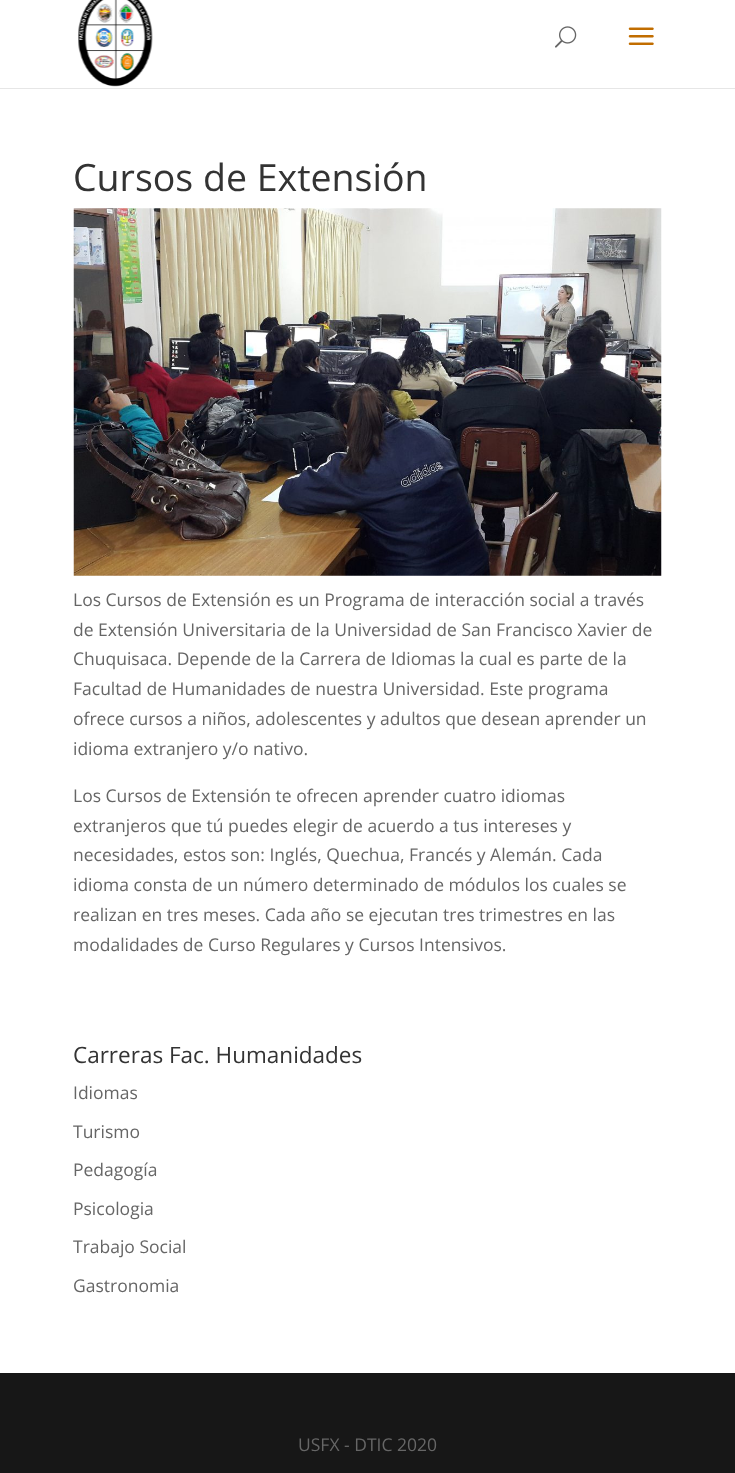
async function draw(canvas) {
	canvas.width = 735;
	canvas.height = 1473;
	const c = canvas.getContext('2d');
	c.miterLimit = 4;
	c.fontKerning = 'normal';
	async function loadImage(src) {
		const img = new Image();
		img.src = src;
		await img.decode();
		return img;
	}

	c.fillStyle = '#fff';
	c.fillRect(0, 0, 735, 1473);
	c.fillStyle = '#e6e6e6';
	c.fillRect(0, 88, 735, 1);
	c.drawImage(await loadImage('img1.png'), 78, 0, 75, 87);
	c.drawImage(await loadImage('img2.png'), 555, 26, 22, 22);
	c.drawImage(await loadImage('img3.png'), 628, 27, 26, 18);
	c.font = '37.5px Open Sans';
	c.fillStyle = '#333';
	c.fillText('Cursos de Extensión', 73, 191);
	c.drawImage(await loadImage('img4.png'), 73, 208, 589, 368);
	c.font = '17.5px Open Sans';
	c.fillStyle = '#666';
	for (const [text, x, y] of [
		['Los Cursos de Extensión es un Programa de interacción social a través', 73, 606],
		['de Extensión Universitaria de la Universidad de San Francisco Xavier de', 73, 636],
		['Chuquisaca. Depende de la Carrera de Idiomas la cual es parte de la', 73, 665],
		['Facultad de Humanidades de nuestra Universidad. Este programa', 73, 695],
		['ofrece cursos a niños, adolescentes y adultos que desean aprender un', 73, 725],
		['idioma extranjero y/o nativo.', 73, 755],
		['Los Cursos de Extensión te ofrecen aprender cuatro idiomas', 73, 802],
		['extranjeros que tú puedes elegir de acuerdo a tus intereses y', 73, 832],
		['necesidades, estos son: Inglés, Quechua, Francés y Alemán. Cada', 73, 861],
		['idioma consta de un número determinado de módulos los cuales se', 73, 891],
		['realizan en tres meses. Cada año se ejecutan tres trimestres en las', 73, 921],
		['modalidades de Curso Regulares y Cursos Intensivos.', 73, 951],
	]) {
		c.fillText(text, x, y);
	}
	c.font = '22.5px Open Sans';
	c.fillStyle = '#333';
	c.fillText('Carreras Fac. Humanidades', 73, 1063);
	c.font = '17.5px Open Sans';
	c.fillStyle = '#666';
	for (const [text, x, y] of [
		['Idiomas', 73, 1099],
		['Turismo', 73, 1138],
		['Pedagogía', 73, 1176],
		['Psicologia', 73, 1215],
		['Trabajo Social', 73, 1253],
		['Gastronomia', 73, 1292],
	]) {
		c.fillText(text, x, y);
	}
	c.fillStyle = '#171717';
	c.fillRect(0, 1373, 735, 100);
	c.fillStyle = '#666';
	c.fillText('USFX - DTIC 2020', 298, 1451);
}

draw(document.querySelector('canvas'));
